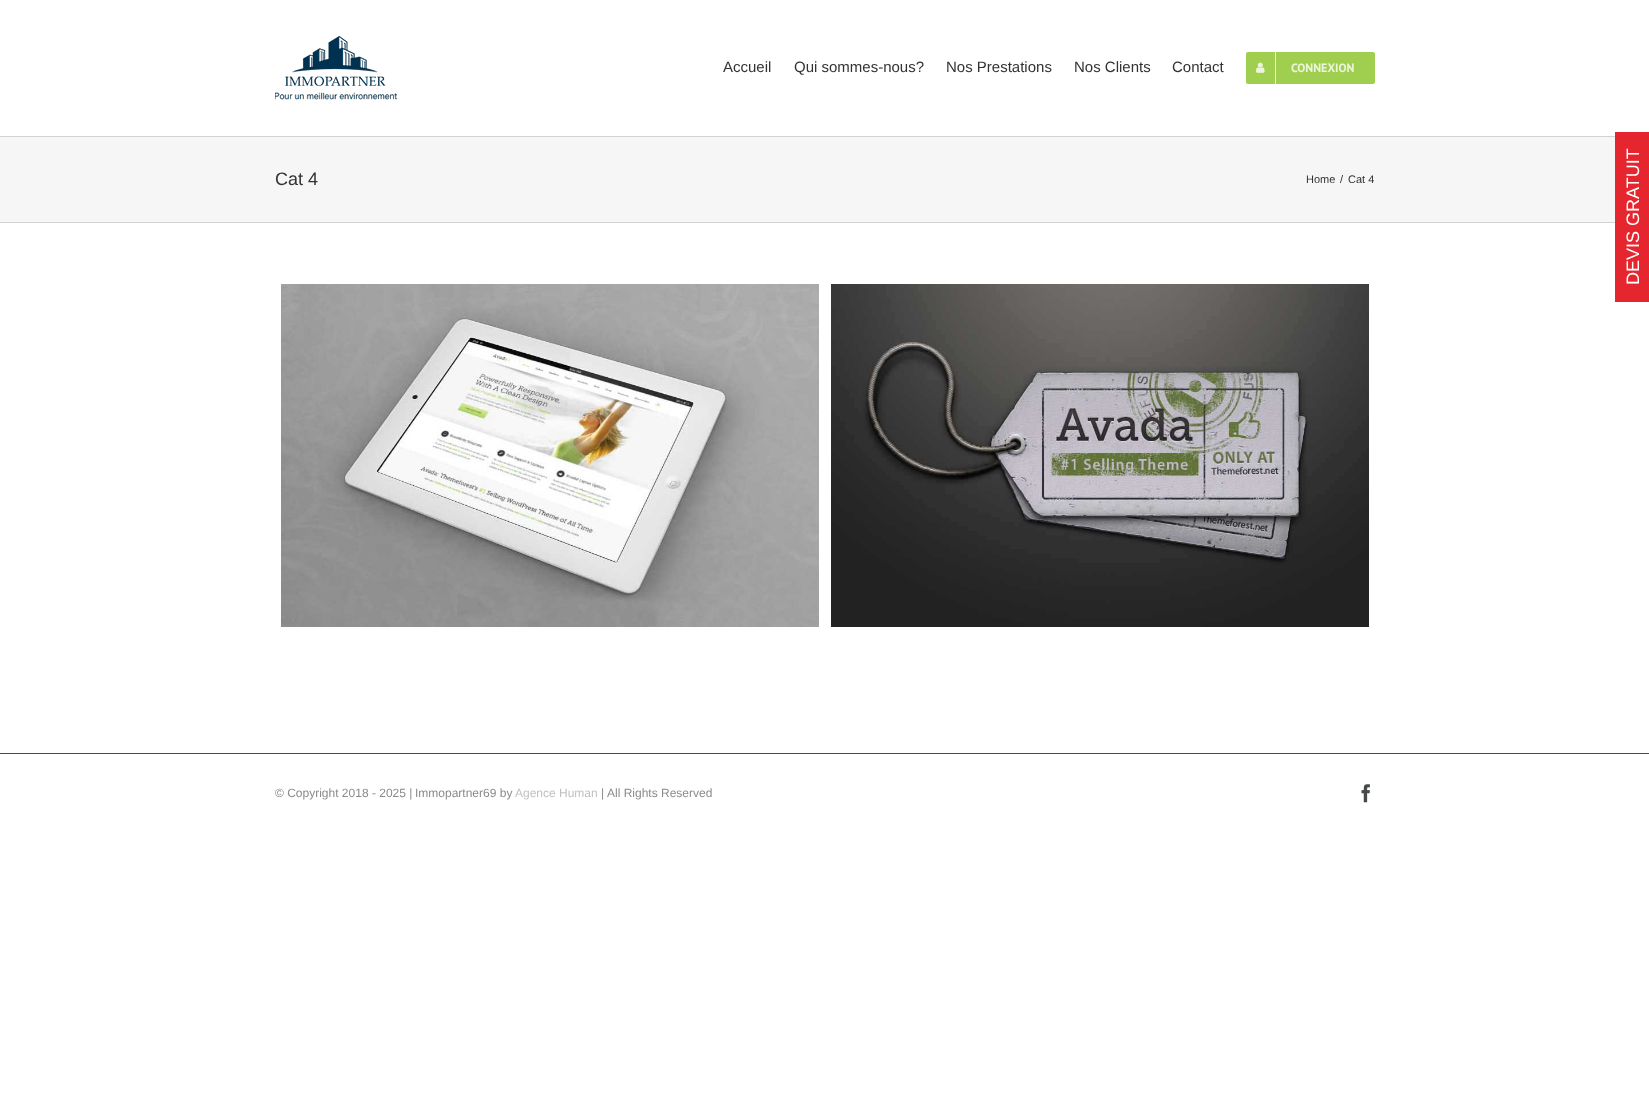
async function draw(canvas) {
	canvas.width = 1649;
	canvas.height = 1106;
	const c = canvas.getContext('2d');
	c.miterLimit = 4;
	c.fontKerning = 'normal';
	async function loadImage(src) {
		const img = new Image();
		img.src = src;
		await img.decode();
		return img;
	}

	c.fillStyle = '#fff';
	c.fillRect(0, 0, 1649, 1106);
	c.drawImage(await loadImage('img1.png'), 275, 36, 122, 64);
	c.font = '15px Liberation Sans';
	c.fillStyle = '#333';
	for (const [text, x, y] of [
		['Accueil', 723, 72],
		['Qui sommes-nous?', 794, 72],
		['Nos Prestations', 946, 72],
		['Nos Clients', 1074, 72],
		['Contact', 1172, 72],
	]) {
		c.fillText(text, x, y);
	}
	c.fillStyle = '#a0ce4e';
	c.beginPath();
	c.roundRect(1246, 52, 129, 32, 2);
	c.fill();
	c.fillStyle = '#ecf5dc';
	c.fillRect(1275, 52, 1, 32);
	c.drawImage(await loadImage('img2.png'), 1256, 62, 9, 11);
	c.font = 'bold 12px PT Sans';
	c.fillText('CONNEXION', 1291, 72);
	for (const [x, y, w, h, color] of [
		[0, 137, 1615, 85, '#f6f6f6'],
		[0, 136, 1615, 1, '#d2d3d4'],
		[0, 222, 1615, 1, '#d2d3d4'],
	]) {
		c.fillStyle = color;
		c.fillRect(x, y, w, h);
	}
	c.font = '18px Liberation Sans';
	c.fillStyle = '#333';
	c.fillText('Cat 4', 275, 185);
	c.font = '11px Liberation Sans';
	for (const [text, x, y] of [
		['Home', 1306, 183],
		['/', 1340, 183],
		['Cat 4', 1348, 183],
	]) {
		c.fillText(text, x, y);
	}
	c.drawImage(await loadImage('img3.png'), 281, 284, 538, 343);
	c.drawImage(await loadImage('img4.png'), 831, 284, 538, 343);
	c.fillStyle = '#4b4c4d';
	c.fillRect(0, 753, 1649, 1);
	c.font = '12px Liberation Sans';
	c.fillStyle = '#8c8989';
	c.fillText('© Copyright 2018 - 2025 |', 275, 797);
	c.fillText('Immopartner69 by', 415, 797);
	c.fillStyle = '#bfbfbf';
	c.fillText('Agence Human', 515, 797);
	c.fillStyle = '#8c8989';
	c.fillText('|', 601, 797);
	c.fillText('All Rights Reserved', 607, 797);
	c.drawImage(await loadImage('img5.png'), 1361, 784, 9, 19);
	c.fillStyle = '#e6262f';
	c.fillRect(1615, 132, 34, 170);
	c.font = '18px Liberation Sans';
	c.fillStyle = '#fff';
	c.save();
	c.translate(1639, 285);
	c.rotate(-90 * Math.PI / 180);
	c.fillText('DEVIS GRATUIT', 0, 0);
	c.restore();
}

draw(document.querySelector('canvas'));
